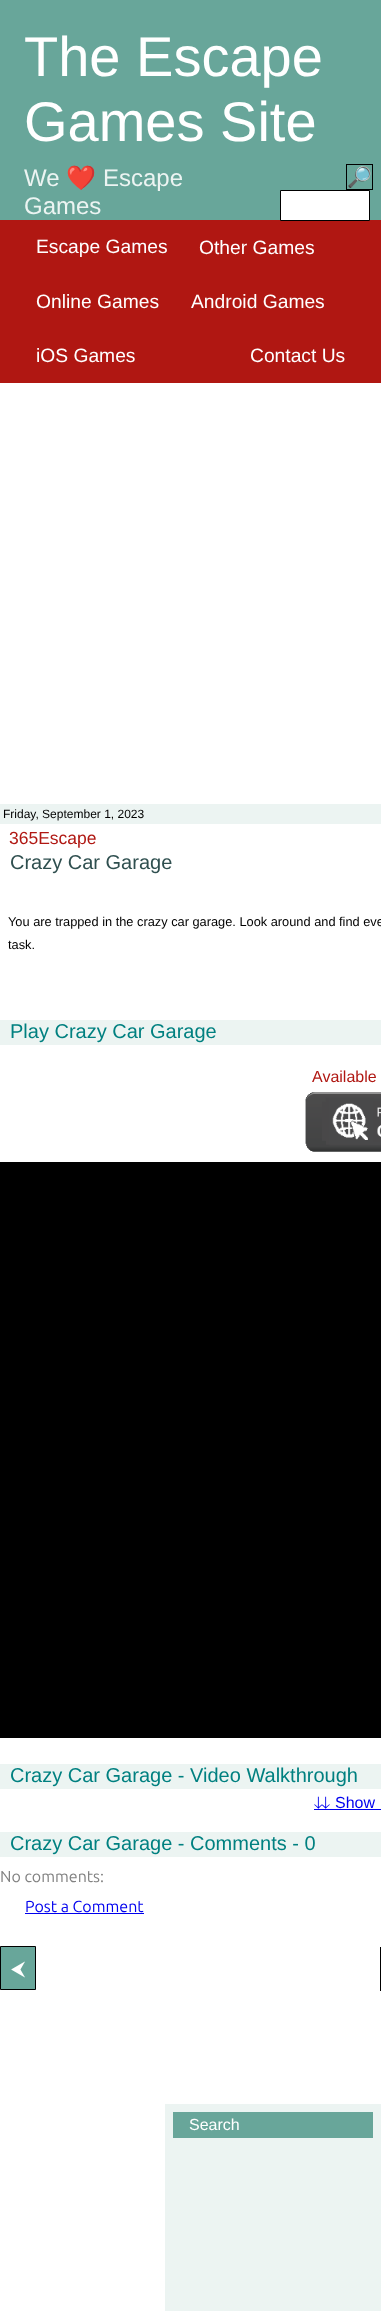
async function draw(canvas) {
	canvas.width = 381;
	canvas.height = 2311;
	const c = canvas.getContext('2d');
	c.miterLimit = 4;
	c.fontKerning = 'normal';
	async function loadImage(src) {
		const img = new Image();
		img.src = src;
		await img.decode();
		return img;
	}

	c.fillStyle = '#fff';
	c.fillRect(0, 0, 381, 2311);
	c.fillStyle = '#68a69a';
	c.fillRect(0, 0, 381, 220);
	c.font = '56px Liberation Sans';
	c.fillStyle = '#fff';
	c.fillText('The Escape', 24, 76);
	c.fillText('Games Site', 24, 141);
	c.font = '24px Liberation Sans';
	c.fillStyle = '#ecf4f2';
	c.fillText('We', 24, 186);
	c.font = '24px Noto Color Emoji';
	c.fillText('❤️', 66, 186);
	c.font = '24px Liberation Sans';
	c.fillText('Escape', 103, 186);
	c.fillText('Games', 24, 214);
	c.strokeStyle = '#000';
	c.strokeRect(346.5, 164.5, 26, 25);
	c.font = '20px Noto Color Emoji';
	c.fillStyle = '#fff';
	c.fillText('🔎', 347, 184);
	c.fillStyle = '#b01712';
	c.fillRect(0, 220, 381, 163);
	c.fillStyle = '#fff';
	c.beginPath();
	c.rect(280.5, 190.5, 89, 30);
	c.fill();
	c.stroke();
	c.font = '19.25px Liberation Sans';
	for (const [text, x, y] of [
		['Escape Games', 36, 253],
		['Other Games', 199, 254],
		['Online Games', 36, 308],
		['Android Games', 191, 308],
		['iOS Games', 36, 362],
		['Contact Us', 250, 362],
	]) {
		c.fillText(text, x, y);
	}
	c.fillStyle = '#ecf4f2';
	c.fillRect(0, 804, 381, 20);
	c.font = '12px Liberation Sans';
	c.fillStyle = '#000';
	c.fillText('Friday, September 1, 2023', 3, 818);
	c.font = '17.5px Liberation Sans';
	c.fillStyle = '#b01712';
	c.fillText('365Escape', 9, 844);
	c.font = '20px Liberation Sans';
	c.fillStyle = '#2f4f4f';
	c.fillText('Crazy Car Garage', 10, 869);
	c.font = '12.8px Liberation Sans';
	c.fillStyle = '#000';
	c.fillText('You are trapped in the crazy car garage. Look around and find eve', 8, 926);
	c.fillText('task.', 8, 949);
	c.fillStyle = '#ecf4f2';
	c.fillRect(0, 1020, 381, 25);
	c.font = '20px Liberation Sans';
	c.fillStyle = '#008080';
	c.fillText('Play Crazy Car Garage', 10, 1038);
	c.font = '16px Liberation Sans';
	c.fillStyle = '#b01712';
	c.fillText('Available', 312, 1082);
	c.drawImage(await loadImage('img1.png'), 305, 1092, 76, 60);
	c.fillStyle = '#000';
	c.fillRect(0, 1162, 381, 576);
	c.fillStyle = '#ecf4f2';
	c.fillRect(0, 1764, 381, 25);
	c.font = '20px Liberation Sans';
	c.fillStyle = '#008080';
	c.fillText('Crazy Car Garage - Video Walkthrough', 10, 1782);
	c.font = '16px FreeSans';
	c.fillStyle = '#00e';
	c.fillText('⇊', 314, 1808);
	c.fillRect(314, 1809, 67, 1);
	c.font = '16px Liberation Sans';
	c.fillText('Show', 335, 1808);
	c.fillStyle = '#ecf4f2';
	c.fillRect(0, 1832, 381, 25);
	c.font = '20px Liberation Sans';
	c.fillStyle = '#008080';
	c.fillText('Crazy Car Garage - Comments - 0', 10, 1850);
	c.font = '16px Ubuntu';
	c.fillStyle = '#828282';
	c.fillText('No comments:', 0, 1882);
	c.fillStyle = '#00e';
	c.fillText('Post a Comment', 25, 1912);
	c.fillRect(25, 1913, 119, 1);
	c.fillStyle = '#68a69a';
	c.beginPath();
	c.rect(0.5, 1946.5, 35, 43);
	c.fill();
	c.stroke();
	c.font = '20px FreeSans';
	c.fillStyle = '#fff';
	c.fillText('⮜', 11, 1975);
	c.strokeRect(380.5, 1947.5, 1, 43);
	c.fillStyle = '#ecf4f2';
	c.fillRect(165, 2104, 216, 207);
	c.fillStyle = '#68a69a';
	c.fillRect(173, 2112, 200, 26);
	c.font = '16px Liberation Sans';
	c.fillStyle = '#fff';
	c.fillText('Search', 189, 2130);
}

draw(document.querySelector('canvas'));
